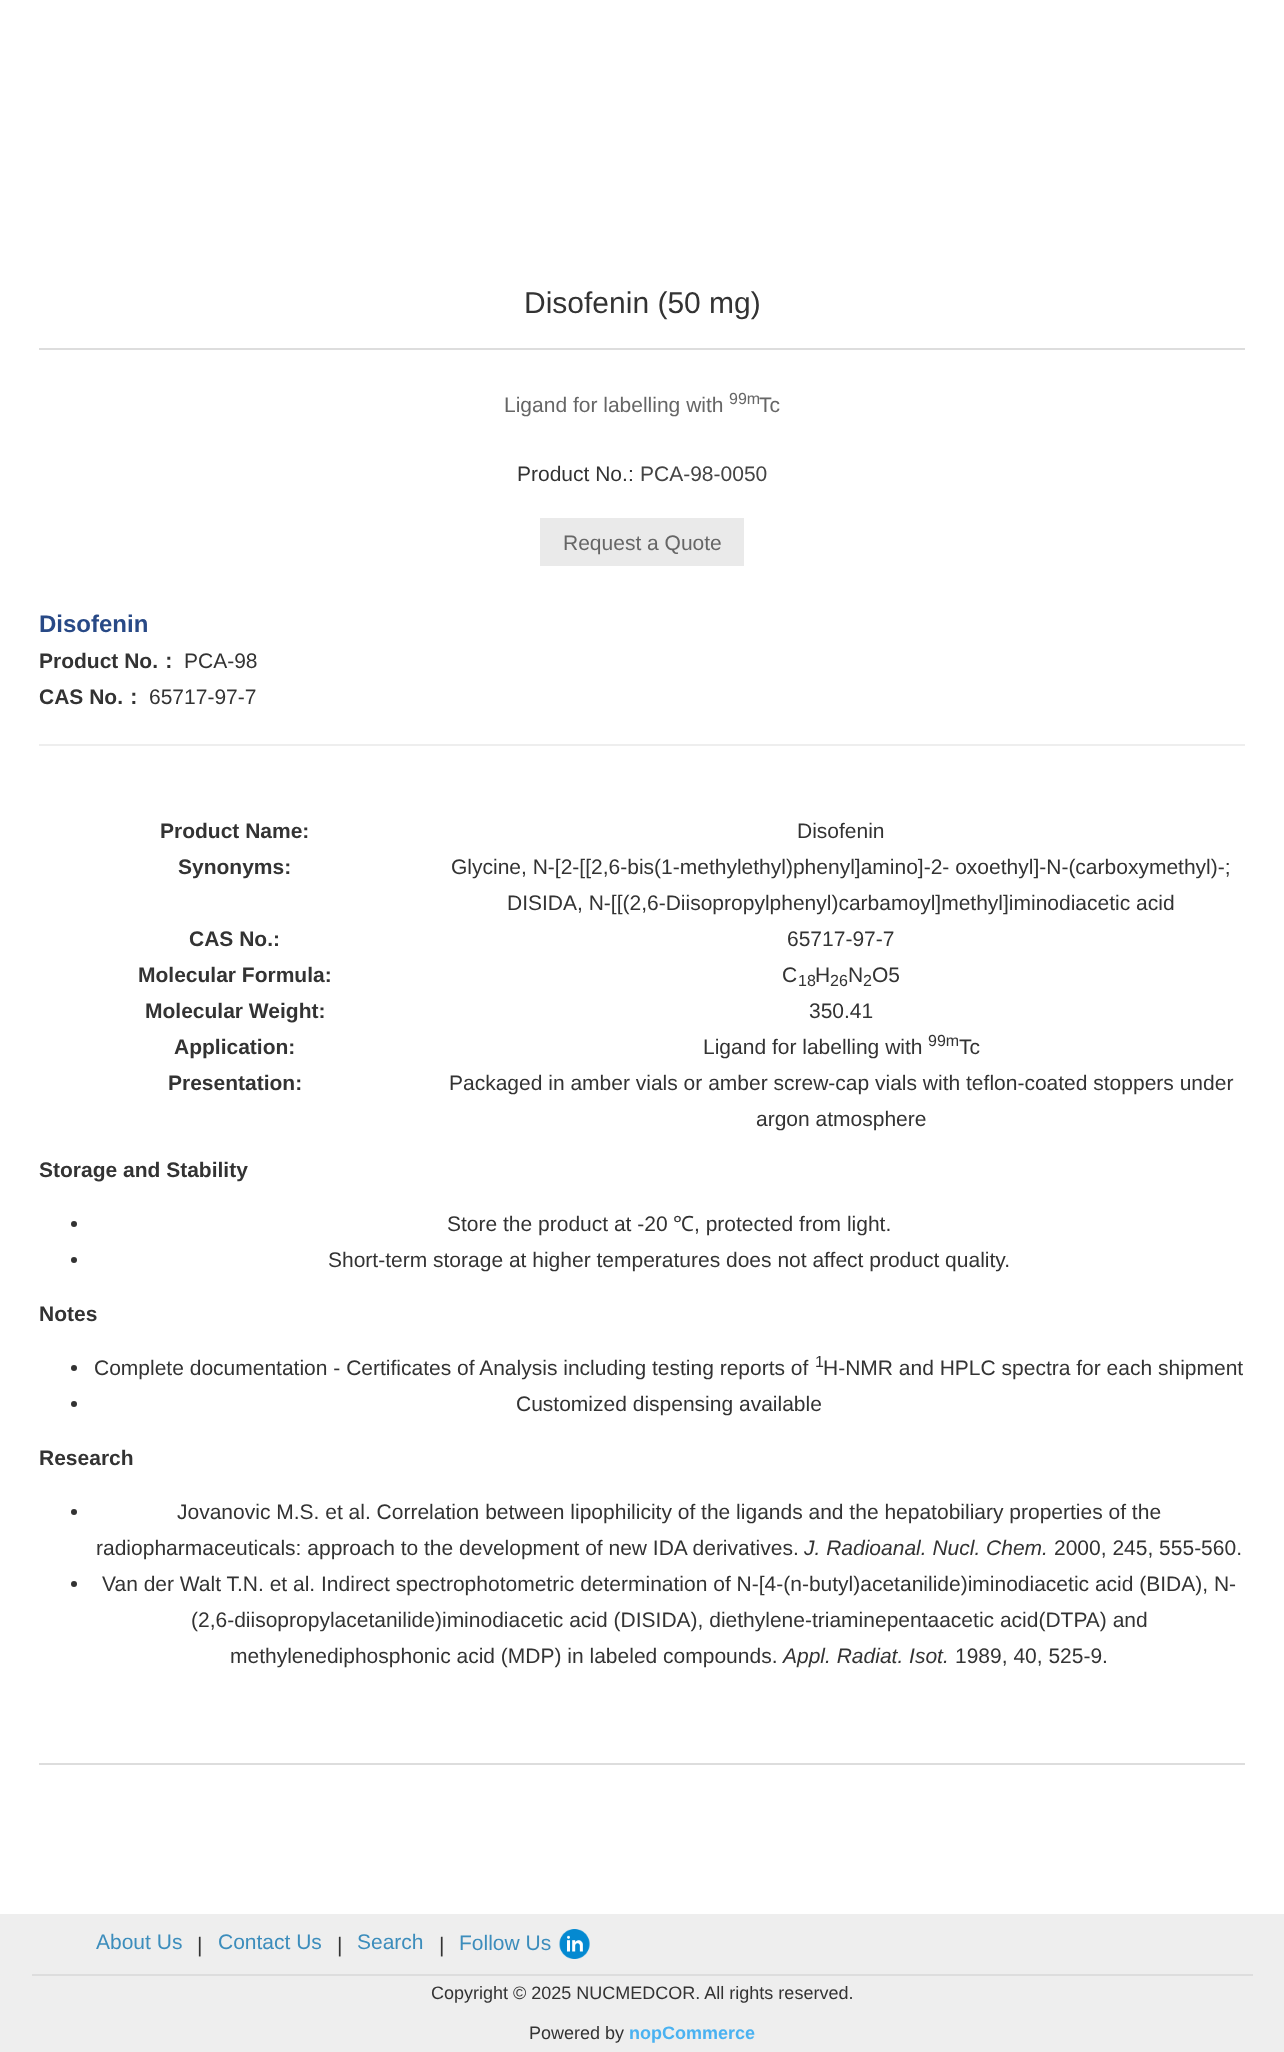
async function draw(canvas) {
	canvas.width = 1284;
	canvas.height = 2052;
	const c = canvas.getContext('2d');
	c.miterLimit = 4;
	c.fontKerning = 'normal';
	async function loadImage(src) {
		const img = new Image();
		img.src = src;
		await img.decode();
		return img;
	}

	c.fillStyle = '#fff';
	c.fillRect(0, 0, 1284, 2052);
	c.fillStyle = '#ddd';
	c.fillRect(39, 1763, 1206, 2);
	c.fillRect(39, 348, 1206, 2);
	c.font = '30px Liberation Sans';
	c.fillStyle = '#333';
	c.fillText('Disofenin (50 mg)', 524, 313);
	c.font = '21px Liberation Sans';
	c.fillStyle = '#666';
	c.fillText('Ligand for labelling with', 504, 412);
	c.font = '16px Liberation Sans';
	c.fillText('99m', 729, 404);
	c.font = '21px Liberation Sans';
	c.fillText('Tc', 759, 412);
	c.fillStyle = '#333';
	c.fillText('Product No.:', 517, 481);
	c.fillStyle = '#444';
	c.fillText('PCA-98-0050', 640, 481);
	c.fillStyle = '#eaeaea';
	c.fillRect(540, 518, 204, 48);
	c.fillStyle = '#666';
	c.fillText('Request a Quote', 563, 550);
	c.font = 'bold 24px Liberation Sans';
	c.fillStyle = '#284986';
	c.fillText('Disofenin', 39, 632);
	c.font = 'bold 21px Liberation Sans';
	c.fillStyle = '#333';
	c.fillText('Product No.', 39, 668);
	c.font = 'bold 21px WenQuanYi Zen Hei';
	c.fillText('：', 158, 668);
	c.font = '21px Liberation Sans';
	c.fillText('PCA-98', 184, 668);
	c.font = 'bold 21px Liberation Sans';
	c.fillText('CAS No.', 39, 704);
	c.font = 'bold 21px WenQuanYi Zen Hei';
	c.fillText('：', 123, 704);
	c.font = '21px Liberation Sans';
	c.fillText('65717-97-7', 149, 704);
	c.fillStyle = '#eee';
	c.fillRect(39, 744, 1206, 2);
	c.font = 'bold 21px Liberation Sans';
	c.fillStyle = '#333';
	c.fillText('Product Name:', 160, 838);
	c.font = '21px Liberation Sans';
	c.fillText('Disofenin', 797, 838);
	c.font = 'bold 21px Liberation Sans';
	c.fillText('Synonyms:', 178, 874);
	c.font = '21px Liberation Sans';
	c.fillText('Glycine, N-[2-[[2,6-bis(1-methylethyl)phenyl]amino]-2- oxoethyl]-N-(carboxymethyl)-;', 451, 874);
	c.fillText('DISIDA, N-[[(2,6-Diisopropylphenyl)carbamoyl]methyl]iminodiacetic acid', 507, 910);
	c.font = 'bold 21px Liberation Sans';
	c.fillText('CAS No.:', 189, 946);
	c.font = '21px Liberation Sans';
	c.fillText('65717-97-7', 787, 946);
	c.font = 'bold 21px Liberation Sans';
	c.fillText('Molecular Formula:', 138, 982);
	c.font = '21px Liberation Sans';
	c.fillText('C', 782, 982);
	c.font = '16px Liberation Sans';
	c.fillText('18', 798, 986);
	c.font = '21px Liberation Sans';
	c.fillText('H', 815, 982);
	c.font = '16px Liberation Sans';
	c.fillText('26', 830, 986);
	c.font = '21px Liberation Sans';
	c.fillText('N', 848, 982);
	c.font = '16px Liberation Sans';
	c.fillText('2', 863, 986);
	c.font = '21px Liberation Sans';
	c.fillText('O5', 872, 982);
	c.font = 'bold 21px Liberation Sans';
	c.fillText('Molecular Weight:', 145, 1018);
	c.font = '21px Liberation Sans';
	c.fillText('350.41', 809, 1018);
	c.font = 'bold 21px Liberation Sans';
	c.fillText('Application:', 174, 1054);
	c.font = '21px Liberation Sans';
	c.fillText('Ligand for labelling with', 703, 1054);
	c.font = '16px Liberation Sans';
	c.fillText('99m', 928, 1046);
	c.font = '21px Liberation Sans';
	c.fillText('Tc', 959, 1054);
	c.font = 'bold 21px Liberation Sans';
	c.fillText('Presentation:', 168, 1090);
	c.font = '21px Liberation Sans';
	c.fillText('Packaged in amber vials or amber screw-cap vials with teflon-coated stoppers under', 449, 1090);
	c.fillText('argon atmosphere', 756, 1126);
	c.font = 'bold 21px Liberation Sans';
	c.fillText('Storage and Stability', 39, 1177);
	c.beginPath();
	c.arc(74, 1224, 3, 0, 2 * Math.PI);
	c.fill();
	c.font = '21px Liberation Sans';
	c.fillText('Store the product at -20', 447, 1231);
	c.font = '21px Noto Sans';
	c.fillText('℃', 673, 1231);
	c.font = '21px Liberation Sans';
	c.fillText(', protected from light.', 694, 1231);
	c.beginPath();
	c.arc(74, 1260, 3, 0, 2 * Math.PI);
	c.fill();
	c.fillText('Short-term storage at higher temperatures does not affect product quality.', 328, 1267);
	c.font = 'bold 21px Liberation Sans';
	c.fillText('Notes', 39, 1321);
	c.beginPath();
	c.arc(74, 1368, 3, 0, 2 * Math.PI);
	c.fill();
	c.font = '21px Liberation Sans';
	c.fillText('Complete documentation - Certificates of Analysis including testing reports of', 94, 1375);
	c.font = '16px Liberation Sans';
	c.fillText('1', 815, 1367);
	c.font = '21px Liberation Sans';
	c.fillText('H-NMR and HPLC spectra for each shipment', 823, 1375);
	c.beginPath();
	c.arc(74, 1404, 3, 0, 2 * Math.PI);
	c.fill();
	c.fillText('Customized dispensing available', 516, 1411);
	c.font = 'bold 21px Liberation Sans';
	c.fillText('Research', 39, 1465);
	c.beginPath();
	c.arc(74, 1512, 3, 0, 2 * Math.PI);
	c.fill();
	c.font = '21px Liberation Sans';
	c.fillText('Jovanovic M.S. et al. Correlation between lipophilicity of the ligands and the hepatobiliary properties of the', 177, 1519);
	c.fillText('radiopharmaceuticals: approach to the development of new IDA derivatives.', 96, 1555);
	c.font = 'italic 21px Liberation Sans';
	c.fillText('J. Radioanal. Nucl. Chem.', 804, 1555);
	c.font = '21px Liberation Sans';
	c.fillText('2000, 245, 555-560.', 1054, 1555);
	c.beginPath();
	c.arc(74, 1584, 3, 0, 2 * Math.PI);
	c.fill();
	for (const [text, x, y] of [
		['Van der Walt T.N. et al. Indirect spectrophotometric determination of N-[4-(n-butyl)acetanilide)iminodiacetic acid (BIDA), N-', 102, 1591],
		['(2,6-diisopropylacetanilide)iminodiacetic acid (DISIDA), diethylene-triaminepentaacetic acid(DTPA) and', 191, 1627],
		['methylenediphosphonic acid (MDP) in labeled compounds.', 230, 1663],
	]) {
		c.fillText(text, x, y);
	}
	c.font = 'italic 21px Liberation Sans';
	c.fillText('Appl. Radiat. Isot.', 783, 1663);
	c.font = '21px Liberation Sans';
	c.fillText('1989, 40, 525-9.', 955, 1663);
	c.fillStyle = '#eee';
	c.fillRect(0, 1914, 1284, 138);
	c.fillStyle = '#ddd';
	c.fillRect(32, 1974, 1221, 2);
	c.fillStyle = '#3c8dbc';
	c.fillText('About Us', 96, 1949);
	c.fillStyle = '#333';
	c.fillText('|', 197, 1952);
	c.fillStyle = '#3c8dbc';
	c.fillText('Contact Us', 218, 1949);
	c.fillStyle = '#333';
	c.fillText('|', 337, 1952);
	c.fillStyle = '#3c8dbc';
	c.fillText('Search', 357, 1949);
	c.fillStyle = '#333';
	c.fillText('|', 439, 1952);
	c.fillStyle = '#3c8dbc';
	c.fillText('Follow Us', 459, 1950);
	c.drawImage(await loadImage('img1.png'), 559, 1929, 31, 30);
	c.font = '18px Liberation Sans';
	c.fillStyle = '#333';
	c.fillText('Copyright © 2025 NUCMEDCOR. All rights reserved.', 431, 1999);
	c.fillText('Powered by', 529, 2039);
	c.font = 'bold 18px Liberation Sans';
	c.fillStyle = '#4ab2f1';
	c.fillText('nopCommerce', 629, 2039);
}

draw(document.querySelector('canvas'));
